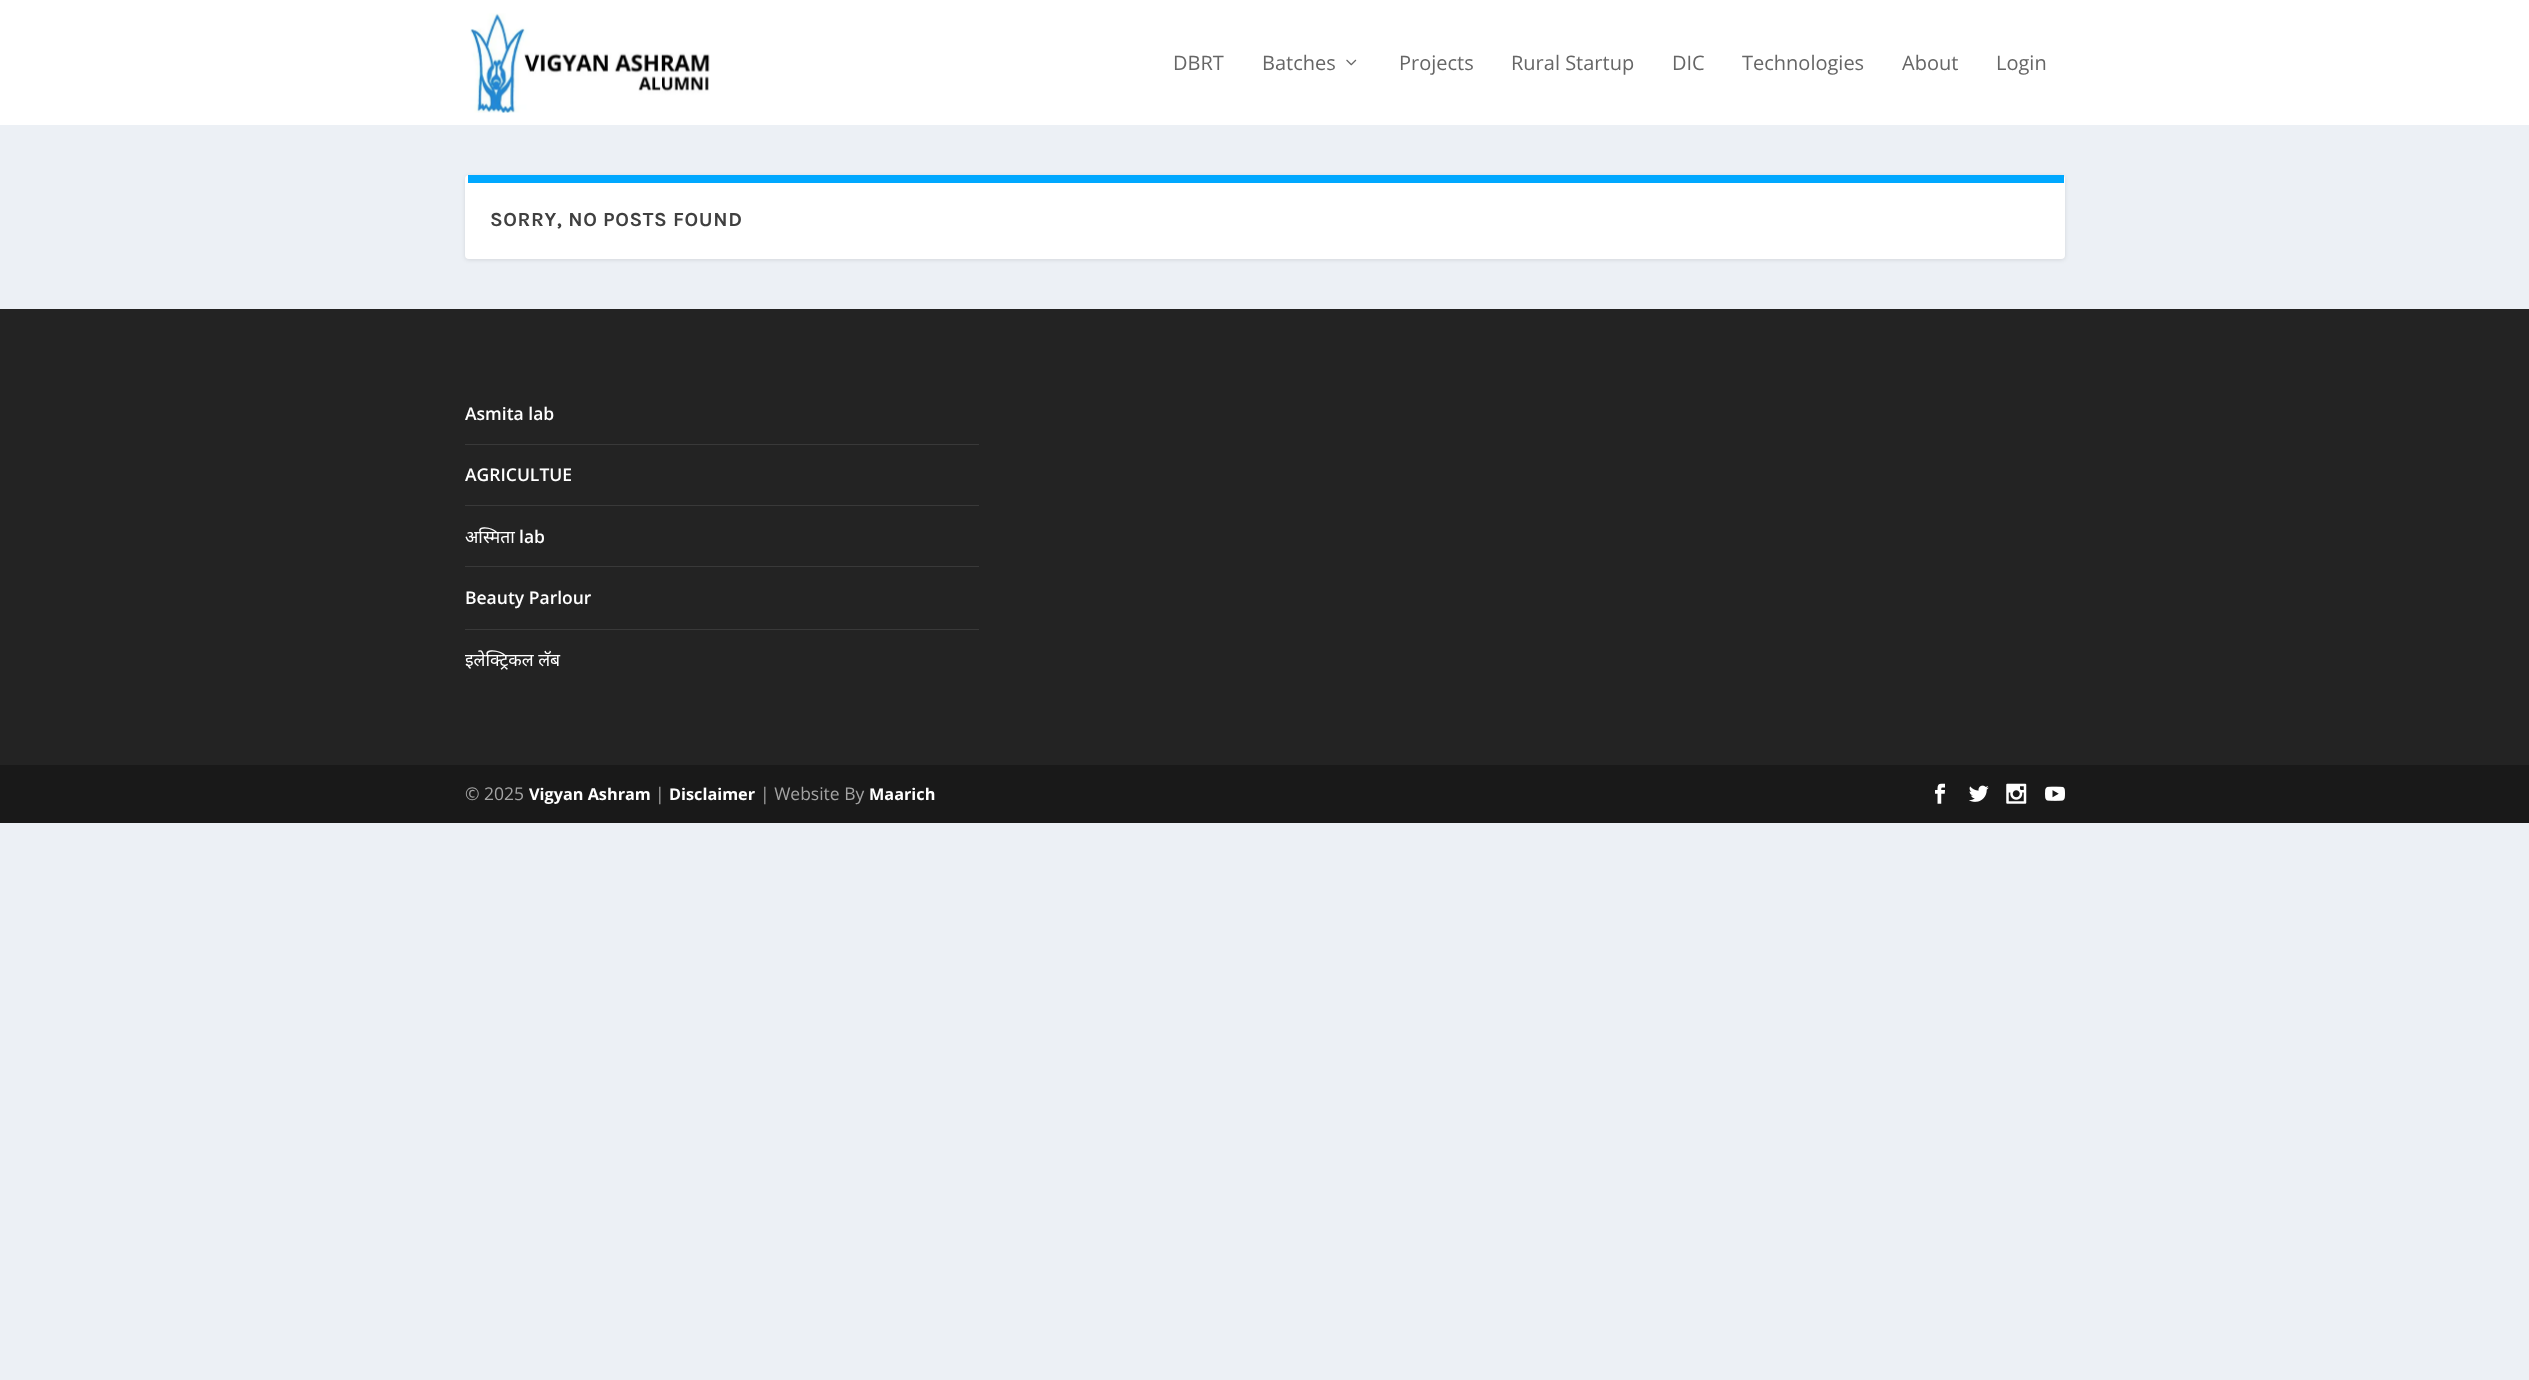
async function draw(canvas) {
	canvas.width = 2529;
	canvas.height = 1380;
	const c = canvas.getContext('2d');
	c.miterLimit = 4;
	c.fontKerning = 'normal';
	async function loadImage(src) {
		const img = new Image();
		img.src = src;
		await img.decode();
		return img;
	}

	c.fillStyle = '#ecf0f5';
	c.fillRect(0, 0, 2529, 1380);
	c.fillStyle = '#fff';
	c.fillRect(0, 0, 2529, 125);
	c.drawImage(await loadImage('img1.png'), 470, 13, 240, 100);
	c.font = '20px Open Sans';
	c.fillStyle = '#666';
	c.fillText('DBRT', 1173, 70);
	c.fillText('Batches', 1262, 70);
	c.drawImage(await loadImage('img2.png'), 1346, 59, 11, 7);
	for (const [text, x, y] of [
		['Projects', 1399, 70],
		['Rural Startup', 1511, 70],
		['DIC', 1672, 70],
		['Technologies', 1742, 70],
		['About', 1902, 70],
		['Login', 1996, 70],
	]) {
		c.fillText(text, x, y);
	}
	c.fillStyle = '#0000001a';
	c.filter = 'blur(2px)';
	c.beginPath();
	c.roundRect(465, 176, 1600, 84, 4);
	c.fill();
	c.filter = 'none';
	c.fillStyle = '#fff';
	c.beginPath();
	c.roundRect(465, 175, 1600, 84, 4);
	c.fill();
	c.fillStyle = '#00a8ff';
	c.fillRect(468, 175, 1596, 8);
	c.letterSpacing = '0.6px';
	c.font = 'bold 20px Karla';
	c.fillStyle = '#404040';
	c.fillText('SORRY, NO POSTS FOUND', 490, 226);
	c.fillStyle = '#232323';
	c.fillRect(0, 309, 2529, 456);
	c.fillStyle = '#393939';
	c.fillRect(465, 444, 514, 1);
	c.letterSpacing = '0px';
	c.font = '600 17.5px Open Sans';
	c.fillStyle = '#fff';
	c.fillText('Asmita lab', 465, 420);
	c.fillStyle = '#393939';
	c.fillRect(465, 505, 514, 1);
	c.fillStyle = '#fff';
	c.fillText('AGRICULTUE', 465, 481);
	c.fillStyle = '#393939';
	c.fillRect(465, 566, 514, 1);
	c.font = '17.5px Noto Sans';
	c.fillStyle = '#fff';
	c.fillText('अस्मिता', 465, 543);
	c.font = '600 17.5px Open Sans';
	c.fillText('lab', 519, 543);
	c.fillStyle = '#393939';
	c.fillRect(465, 629, 514, 1);
	c.fillStyle = '#fff';
	c.fillText('Beauty Parlour', 465, 604);
	c.font = '17.5px Noto Sans';
	c.fillText('इलेक्ट्रिकल लॅब', 465, 666);
	c.fillStyle = '#191919';
	c.fillRect(0, 765, 2529, 58);
	c.font = '17.5px Open Sans';
	c.fillStyle = '#a3a3a3';
	c.fillText('© 2025', 465, 800);
	c.font = 'bold 16.25px Open Sans';
	c.fillStyle = '#fff';
	c.fillText('Vigyan Ashram', 529, 800);
	c.font = '17.5px Open Sans';
	c.fillStyle = '#a3a3a3';
	c.fillText('|', 655, 800);
	c.font = 'bold 16.25px Open Sans';
	c.fillStyle = '#fff';
	c.fillText('Disclaimer', 669, 800);
	c.font = '17.5px Open Sans';
	c.fillStyle = '#a3a3a3';
	c.fillText('| Website By', 760, 800);
	c.font = 'bold 16.25px Open Sans';
	c.fillStyle = '#fff';
	c.fillText('Maarich', 869, 800);
	c.drawImage(await loadImage('img3.png'), 1935, 783, 10, 21);
	c.drawImage(await loadImage('img4.png'), 1969, 785, 20, 17);
	c.drawImage(await loadImage('img5.png'), 2006, 783, 21, 21);
	c.drawImage(await loadImage('img6.png'), 2045, 786, 20, 15);
}

draw(document.querySelector('canvas'));
